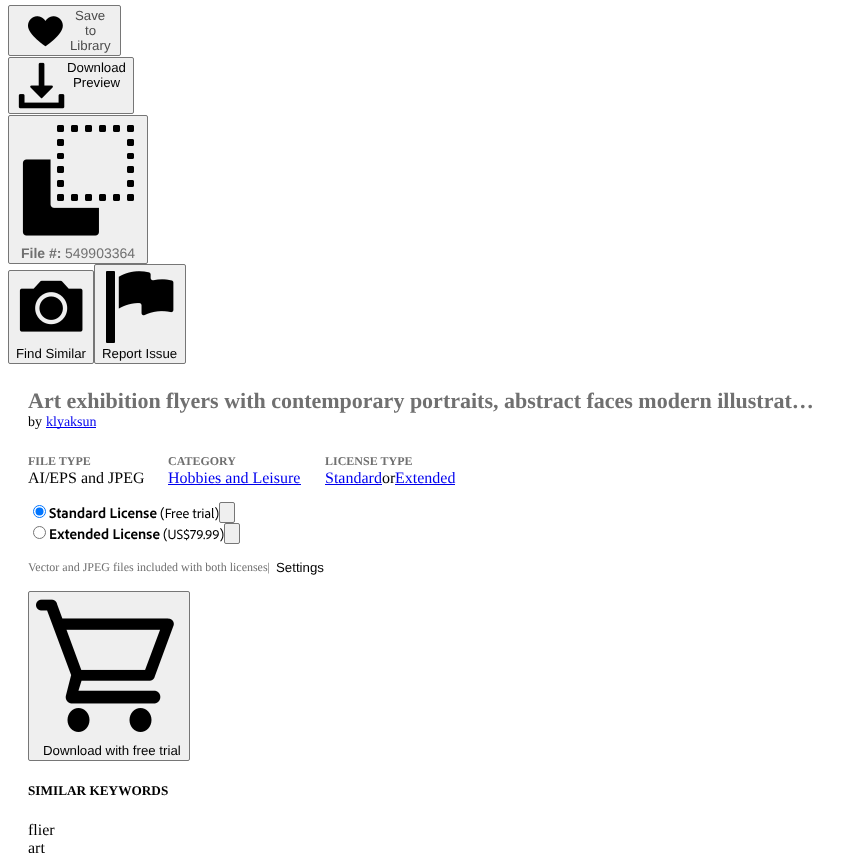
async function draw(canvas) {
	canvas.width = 845;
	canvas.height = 861;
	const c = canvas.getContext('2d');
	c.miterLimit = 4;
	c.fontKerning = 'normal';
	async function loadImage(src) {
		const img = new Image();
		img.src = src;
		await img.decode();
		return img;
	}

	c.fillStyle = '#fff';
	c.fillRect(0, 0, 845, 861);
	c.fillStyle = '#efefef';
	c.beginPath();
	c.roundRect(8.5, 5.5, 112, 50, 1.5);
	c.fill();
	c.strokeStyle = '#767676';
	c.stroke();
	c.drawImage(await loadImage('img1.png'), 28, 16, 35, 31);
	c.font = '13.25px Liberation Sans';
	c.fillStyle = '#4b4b4b';
	for (const [text, x, y] of [
		['Save', 75, 20],
		['to', 85, 35],
		['Library', 70, 50],
	]) {
		c.fillText(text, x, y);
	}
	c.fillStyle = '#efefef';
	c.beginPath();
	c.roundRect(8.5, 57.5, 125, 56, 1.5);
	c.fill();
	c.stroke();
	c.drawImage(await loadImage('img2.png'), 18, 62, 47, 47);
	c.fillStyle = '#000';
	c.fillText('Download', 67, 72);
	c.fillText('Preview', 73, 87);
	c.fillStyle = '#efefef';
	c.beginPath();
	c.roundRect(8.5, 115.5, 139, 148, 1.5);
	c.fill();
	c.stroke();
	c.drawImage(await loadImage('img3.png'), 22, 125, 112, 111);
	c.font = 'bold 14px Liberation Sans';
	c.fillStyle = '#707070';
	c.fillText('File #:', 21, 258);
	c.font = '14px Liberation Sans';
	c.fillText('549903364', 65, 258);
	c.fillStyle = '#efefef';
	c.beginPath();
	c.roundRect(8.5, 270.5, 85, 93, 1.5);
	c.fill();
	c.stroke();
	c.drawImage(await loadImage('img4.png'), 19, 280, 64, 52);
	c.font = '13.25px Liberation Sans';
	c.fillStyle = '#000';
	c.fillText('Find Similar', 16, 358);
	c.fillStyle = '#efefef';
	c.beginPath();
	c.roundRect(94.5, 264.5, 91, 99, 1.5);
	c.fill();
	c.stroke();
	c.drawImage(await loadImage('img5.png'), 106, 271, 68, 72);
	c.fillStyle = '#000';
	c.fillText('Report Issue', 102, 358);
	c.font = 'bold 22px Liberation Serif';
	c.fillStyle = '#707070';
	c.fillText('Art exhibition flyers with contemporary portraits, abstract faces modern illustrat…', 28, 408);
	c.font = '14px Liberation Serif';
	c.fillStyle = '#000';
	c.fillText('by', 28, 426);
	c.fillStyle = '#00e';
	c.fillRect(46, 427, 50, 1);
	c.fillText('klyaksun', 46, 426);
	c.font = 'bold 12px Liberation Serif';
	c.fillStyle = '#707070';
	c.fillText('FILE TYPE', 28, 465);
	c.font = '16px Liberation Serif';
	c.fillStyle = '#000';
	c.fillText('AI/EPS and JPEG', 28, 483);
	c.font = 'bold 12px Liberation Serif';
	c.fillStyle = '#707070';
	c.fillText('CATEGORY', 168, 465);
	c.font = '16px Liberation Serif';
	c.fillStyle = '#00e';
	c.fillText('Hobbies and Leisure', 168, 483);
	c.fillRect(168, 484, 133, 1);
	c.font = 'bold 12px Liberation Serif';
	c.fillStyle = '#707070';
	c.fillText('LICENSE TYPE', 325, 465);
	c.font = '16px Liberation Serif';
	c.fillStyle = '#00e';
	c.fillText('Standard', 325, 483);
	c.fillStyle = '#000';
	c.fillText('or', 382, 483);
	c.fillStyle = '#00e';
	c.fillRect(325, 484, 57, 1);
	c.fillRect(395, 484, 60, 1);
	c.fillText('Extended', 395, 483);
	c.beginPath();
	c.arc(39.5, 511.5, 6, 0, 2 * Math.PI);
	c.strokeStyle = '#0075ff';
	c.stroke();
	c.fillStyle = '#0075ff';
	c.beginPath();
	c.arc(39.5, 511.5, 4, 0, 2 * Math.PI);
	c.fill();
	c.font = 'bold 15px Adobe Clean';
	c.fillStyle = '#000';
	c.fillText('Standard License', 49, 518);
	c.font = '14px Adobe Clean';
	c.fillText('(Free trial)', 160, 518);
	c.fillStyle = '#efefef';
	c.beginPath();
	c.roundRect(219.5, 502.5, 15, 20, 1.5);
	c.fill();
	c.strokeStyle = '#767676';
	c.stroke();
	c.beginPath();
	c.arc(39.5, 532.5, 6, 0, 2 * Math.PI);
	c.stroke();
	c.font = 'bold 15px Adobe Clean';
	c.fillStyle = '#000';
	c.fillText('Extended License', 49, 539);
	c.font = '14px Adobe Clean';
	c.fillText('(US$79.99)', 163, 539);
	c.fillStyle = '#efefef';
	c.beginPath();
	c.roundRect(224.5, 523.5, 15, 20, 1.5);
	c.fill();
	c.stroke();
	c.font = '12px Liberation Serif';
	c.fillStyle = '#707070';
	c.fillText('Vector and JPEG files included with both licenses|', 28, 571);
	c.font = '13.25px Liberation Sans';
	c.fillStyle = '#000';
	c.fillText('Settings', 276, 572);
	c.fillStyle = '#efefef';
	c.beginPath();
	c.roundRect(28.5, 591.5, 161, 169, 1.5);
	c.fill();
	c.stroke();
	c.drawImage(await loadImage('img6.png'), 36, 599, 138, 133);
	c.fillStyle = '#000';
	c.fillText('Download with free trial', 43, 755);
	c.font = 'bold 13.25px Liberation Serif';
	c.fillText('SIMILAR KEYWORDS', 28, 795);
	c.font = '16px Liberation Serif';
	c.fillText('flier', 28, 835);
	c.save();
	c.beginPath();
	c.rect(28, 821, 789, 32);
	c.clip();
	c.fillText('art', 28, 853);
	c.restore();
}

draw(document.querySelector('canvas'));
